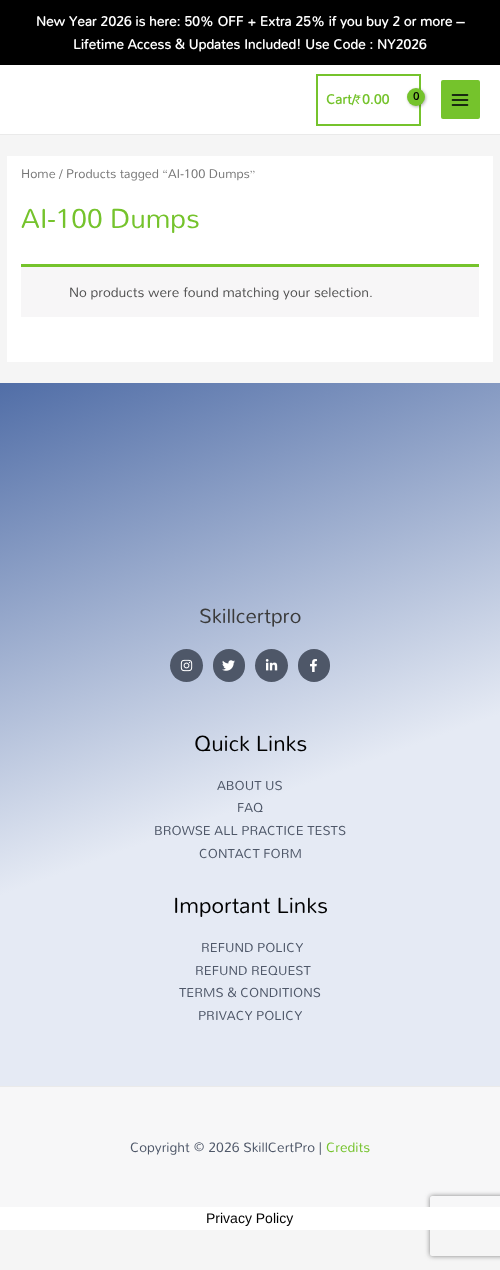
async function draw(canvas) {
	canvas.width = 500;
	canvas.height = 1270;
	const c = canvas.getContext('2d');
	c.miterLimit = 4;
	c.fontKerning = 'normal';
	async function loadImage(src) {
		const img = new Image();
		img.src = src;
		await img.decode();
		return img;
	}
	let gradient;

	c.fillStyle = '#f5f5f5';
	c.fillRect(0, 0, 500, 1270);
	c.fillStyle = '#000';
	c.fillRect(0, 0, 500, 65);
	c.font = 'bold 13.7px Mandali';
	c.fillStyle = '#fff';
	c.fillText('New Year 2026 is here: 50% OFF + Extra 25% if you buy 2 or more –', 36, 26);
	c.fillText('Lifetime Access & Updates Included! Use Code : NY2026', 73, 49);
	c.fillRect(0, 65, 500, 69);
	c.fillStyle = '#eaeaea';
	c.fillRect(0, 134, 500, 1);
	c.strokeStyle = '#75c32c';
	c.lineWidth = 2;
	c.strokeRect(317, 75, 103, 50);
	c.fillStyle = '#75c32c';
	c.fillText('Cart/', 326, 104);
	c.font = '13.7px "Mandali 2"';
	c.fillText('₹', 355, 104);
	c.font = 'bold 13.7px Mandali';
	c.fillText('0.00', 362, 104);
	c.fillStyle = '#0000004d';
	c.filter = 'blur(1.5px)';
	c.beginPath();
	c.roundRect(408, 89, 18, 18, 9);
	c.fill();
	c.filter = 'none';
	c.fillStyle = '#75c32c';
	c.beginPath();
	c.arc(416, 97, 9, 0, 2 * Math.PI);
	c.fill();
	c.font = 'bold 11px Mandali';
	c.fillStyle = '#000';
	c.fillText('0', 413, 100);
	c.fillStyle = '#75c32c';
	c.beginPath();
	c.roundRect(441, 80, 39, 39, 2);
	c.fill();
	c.drawImage(await loadImage('img1.png'), 451, 94, 18, 12);
	c.fillStyle = '#fff';
	c.fillRect(7, 156, 486, 206);
	c.font = '12.6px Mandali';
	c.fillStyle = '#777';
	c.fillText('Home / Products tagged “AI-100 Dumps”', 21, 178);
	c.font = '27.5px Mandali';
	c.fillStyle = '#75c32c';
	c.fillText('AI-100 Dumps', 21, 228);
	c.fillStyle = '#f7f6f7';
	c.fillRect(21, 267, 458, 50);
	c.fillStyle = '#75c32c';
	c.fillRect(21, 264, 458, 3);
	c.font = '13.7px Mandali';
	c.fillStyle = '#515151';
	c.fillText('No products were found matching your selection.', 69, 297);
	gradient = c.createLinearGradient(392, 1125, 108, 344);
	gradient.addColorStop(0.42, '#e5eaf4');
	gradient.addColorStop(1, '#516ea7');
	c.fillStyle = gradient;
	c.fillRect(0, 383, 500, 703);
	c.font = '20.5px Mandali';
	c.fillStyle = '#3a3a3a';
	c.fillText('Skillcertpro', 199, 623);
	c.fillStyle = '#4e5768';
	c.beginPath();
	c.arc(186.5, 665.5, 16.5, 0, 2 * Math.PI);
	c.fill();
	c.drawImage(await loadImage('img2.png'), 180, 659, 13, 13);
	c.beginPath();
	c.roundRect(213, 649, 32, 33, 16);
	c.fill();
	c.drawImage(await loadImage('img3.png'), 222, 660, 13, 11);
	c.beginPath();
	c.arc(271.5, 665.5, 16.5, 0, 2 * Math.PI);
	c.fill();
	c.drawImage(await loadImage('img4.png'), 265, 659, 13, 12);
	c.beginPath();
	c.roundRect(298, 649, 32, 33, 16);
	c.fill();
	c.drawImage(await loadImage('img5.png'), 310, 659, 7, 13);
	c.font = '22px Mandali';
	c.fillStyle = '#000';
	c.fillText('Quick Links', 194, 751);
	c.font = '13px Mandali';
	c.fillStyle = '#4e5768';
	for (const [text, x, y] of [
		['ABOUT US', 217, 790],
		['FAQ', 237, 812],
		['BROWSE ALL PRACTICE TESTS', 154, 835],
		['CONTACT FORM', 199, 858],
	]) {
		c.fillText(text, x, y);
	}
	c.font = '22px Mandali';
	c.fillStyle = '#000';
	c.fillText('Important Links', 173, 913);
	c.font = '13px Mandali';
	c.fillStyle = '#4e5768';
	for (const [text, x, y] of [
		['REFUND POLICY', 201, 952],
		['REFUND REQUEST', 195, 975],
		['TERMS & CONDITIONS', 179, 997],
		['PRIVACY POLICY', 198, 1020],
	]) {
		c.fillText(text, x, y);
	}
	c.fillStyle = '#f7f7f8';
	c.fillRect(0, 1087, 500, 120);
	c.fillStyle = '#eaeaea';
	c.fillRect(0, 1086, 500, 1);
	c.font = '13.7px Mandali';
	c.fillStyle = '#4e5768';
	c.fillText('Copyright © 2026 SkillCertPro |', 130, 1152);
	c.fillStyle = '#75c32c';
	c.fillText('Credits', 326, 1152);
	c.save();
	c.beginPath();
	c.moveTo(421, 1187);
	c.lineTo(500, 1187);
	c.lineTo(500, 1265);
	c.lineTo(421, 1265);
	c.closePath();
	c.moveTo(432, 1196);
	c.lineTo(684, 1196);
	c.bezierCurveTo(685, 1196, 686, 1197, 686, 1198);
	c.lineTo(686, 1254);
	c.bezierCurveTo(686, 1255, 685, 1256, 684, 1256);
	c.lineTo(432, 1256);
	c.bezierCurveTo(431, 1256, 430, 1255, 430, 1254);
	c.lineTo(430, 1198);
	c.bezierCurveTo(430, 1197, 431, 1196, 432, 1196);
	c.closePath();
	c.clip('evenodd');
	c.fillStyle = '#808080';
	c.filter = 'blur(2.5px)';
	c.beginPath();
	c.roundRect(430, 1196, 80, 60, 2);
	c.fill();
	c.filter = 'none';
	c.restore();
	c.fillStyle = '#fff';
	c.fillRect(0, 1207, 500, 23);
	c.font = '14px Liberation Sans';
	c.fillStyle = '#000';
	c.fillText('Privacy Policy', 206, 1223);
}

draw(document.querySelector('canvas'));
